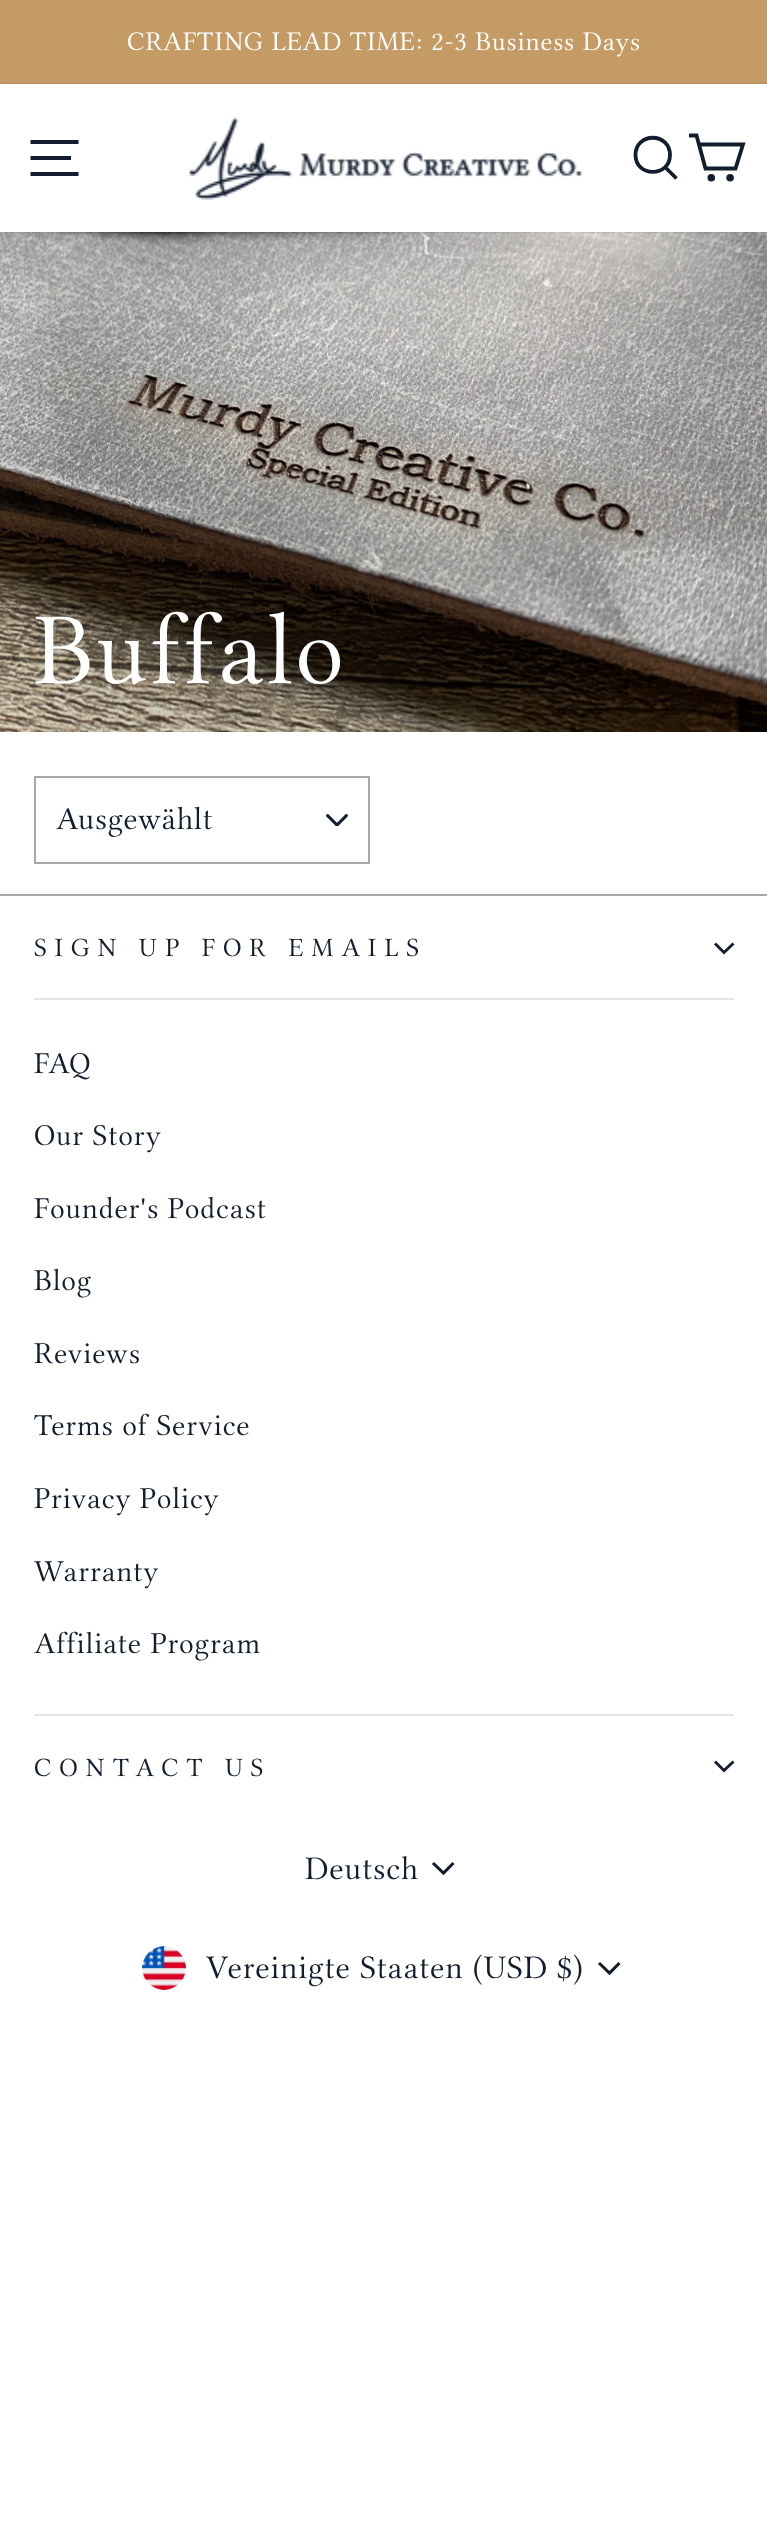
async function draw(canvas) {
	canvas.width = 767;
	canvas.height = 2542;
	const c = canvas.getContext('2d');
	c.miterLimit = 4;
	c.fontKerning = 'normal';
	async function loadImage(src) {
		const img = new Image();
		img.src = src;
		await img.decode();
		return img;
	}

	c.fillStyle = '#fff';
	c.fillRect(0, 0, 767, 2542);
	c.fillStyle = '#c49b65';
	c.fillRect(0, 0, 767, 84);
	c.letterSpacing = '0.85px';
	c.font = '27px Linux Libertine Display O';
	c.fillStyle = '#fff';
	c.fillText('CRAFTING LEAD TIME: 2-3 Business Days', 127, 50);
	c.drawImage(await loadImage('img2.png'), 0, 232, 767, 500);
	c.save();
	c.beginPath();
	c.moveTo(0, 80);
	c.lineTo(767, 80);
	c.lineTo(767, 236);
	c.lineTo(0, 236);
	c.closePath();
	c.moveTo(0, 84);
	c.lineTo(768, 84);
	c.lineTo(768, 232);
	c.lineTo(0, 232);
	c.closePath();
	c.clip('evenodd');
	c.fillStyle = '#00000033';
	c.filter = 'blur(1px)';
	c.beginPath();
	c.rect(0, 84, 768, 148);
	c.fill();
	c.filter = 'none';
	c.restore();
	c.beginPath();
	c.moveTo(30.5, 142);
	c.lineTo(78.5, 142);
	c.moveTo(30.5, 158);
	c.lineTo(71, 158);
	c.moveTo(30.5, 174);
	c.lineTo(78.5, 174);
	c.strokeStyle = '#121e2e';
	c.lineWidth = 3.8;
	c.stroke();
	c.drawImage(await loadImage('img1.png'), 189, 117, 394, 83);
	c.beginPath();
	c.moveTo(670, 155);
	c.bezierCurveTo(670, 177.5, 635.5, 177.5, 635.5, 155);
	c.bezierCurveTo(635.5, 132, 670, 132, 670, 155);
	c.closePath();
	c.moveTo(676.5, 178.5);
	c.lineTo(665.5, 167.5);
	c.stroke();
	c.beginPath();
	c.moveTo(699, 144.5);
	c.lineTo(743, 144.5);
	c.lineTo(735.5, 168.5);
	c.lineTo(705.5, 168.5);
	c.lineTo(696.5, 135.5);
	c.lineTo(689, 135.5);
	c.stroke();
	c.beginPath();
	c.arc(711.3, 177.7, 1.9, 0, 2 * Math.PI);
	c.stroke();
	c.beginPath();
	c.arc(730.1, 177.7, 1.9, 0, 2 * Math.PI);
	c.stroke();
	c.letterSpacing = '2.5px';
	c.font = '102px Linux Libertine Display O';
	c.fillText('Buffalo', 34, 683);
	c.drawImage(await loadImage('img3.png'), 326, 814, 22, 12);
	c.strokeStyle = '#a7a8aa';
	c.lineWidth = 2;
	c.strokeRect(35, 777, 334, 86);
	c.letterSpacing = '0.75px';
	c.font = '32px Linux Libertine Display O';
	c.fillStyle = '#121e2e';
	c.fillText('Ausgewählt', 56, 829);
	c.fillStyle = '#a7a8aa';
	c.fillRect(0, 894, 767, 2);
	c.letterSpacing = '8px';
	c.font = '26.5px Linux Libertine Display O';
	c.fillStyle = '#121e2e';
	c.fillText('SIGN UP FOR EMAILS', 34, 956);
	c.beginPath();
	c.moveTo(715, 943.5);
	c.lineTo(724, 952.5);
	c.lineTo(733.5, 943.5);
	c.strokeStyle = '#121e2e';
	c.lineWidth = 2.9;
	c.stroke();
	c.fillStyle = '#e3e4e6';
	c.fillRect(34, 998, 700, 2);
	c.letterSpacing = '0.85px';
	c.font = '30.5px Linux Libertine Display O';
	c.fillStyle = '#121e2e';
	for (const [text, x, y] of [
		['FAQ', 34, 1073],
		['Our Story', 34, 1145],
		['Founder\'s Podcast', 34, 1218],
		['Blog', 34, 1290],
		['Reviews', 34, 1363],
		['Terms of Service', 34, 1435],
		['Privacy Policy', 34, 1508],
		['Warranty', 34, 1581],
		['Affiliate Program', 34, 1653],
	]) {
		c.fillText(text, x, y);
	}
	c.fillStyle = '#e3e4e6';
	c.fillRect(34, 1714, 700, 2);
	c.letterSpacing = '8px';
	c.font = '26.5px Linux Libertine Display O';
	c.fillStyle = '#121e2e';
	c.fillText('CONTACT US', 34, 1776);
	c.beginPath();
	c.moveTo(715, 1761.5);
	c.lineTo(724, 1770.5);
	c.lineTo(733.5, 1761.5);
	c.stroke();
	c.letterSpacing = '0.85px';
	c.font = '33.1px Linux Libertine Display O';
	c.fillText('Deutsch', 305, 1879);
	c.beginPath();
	c.moveTo(433, 1863);
	c.lineTo(443.5, 1873);
	c.lineTo(453.5, 1863);
	c.lineWidth = 3.1;
	c.stroke();
	c.drawImage(await loadImage('img4.png'), 142, 1946, 44, 44);
	c.fillText('Vereinigte Staaten (USD $)', 206, 1978);
	c.beginPath();
	c.moveTo(599, 1963);
	c.lineTo(609.5, 1973);
	c.lineTo(619.5, 1963);
	c.stroke();
}

draw(document.querySelector('canvas'));
